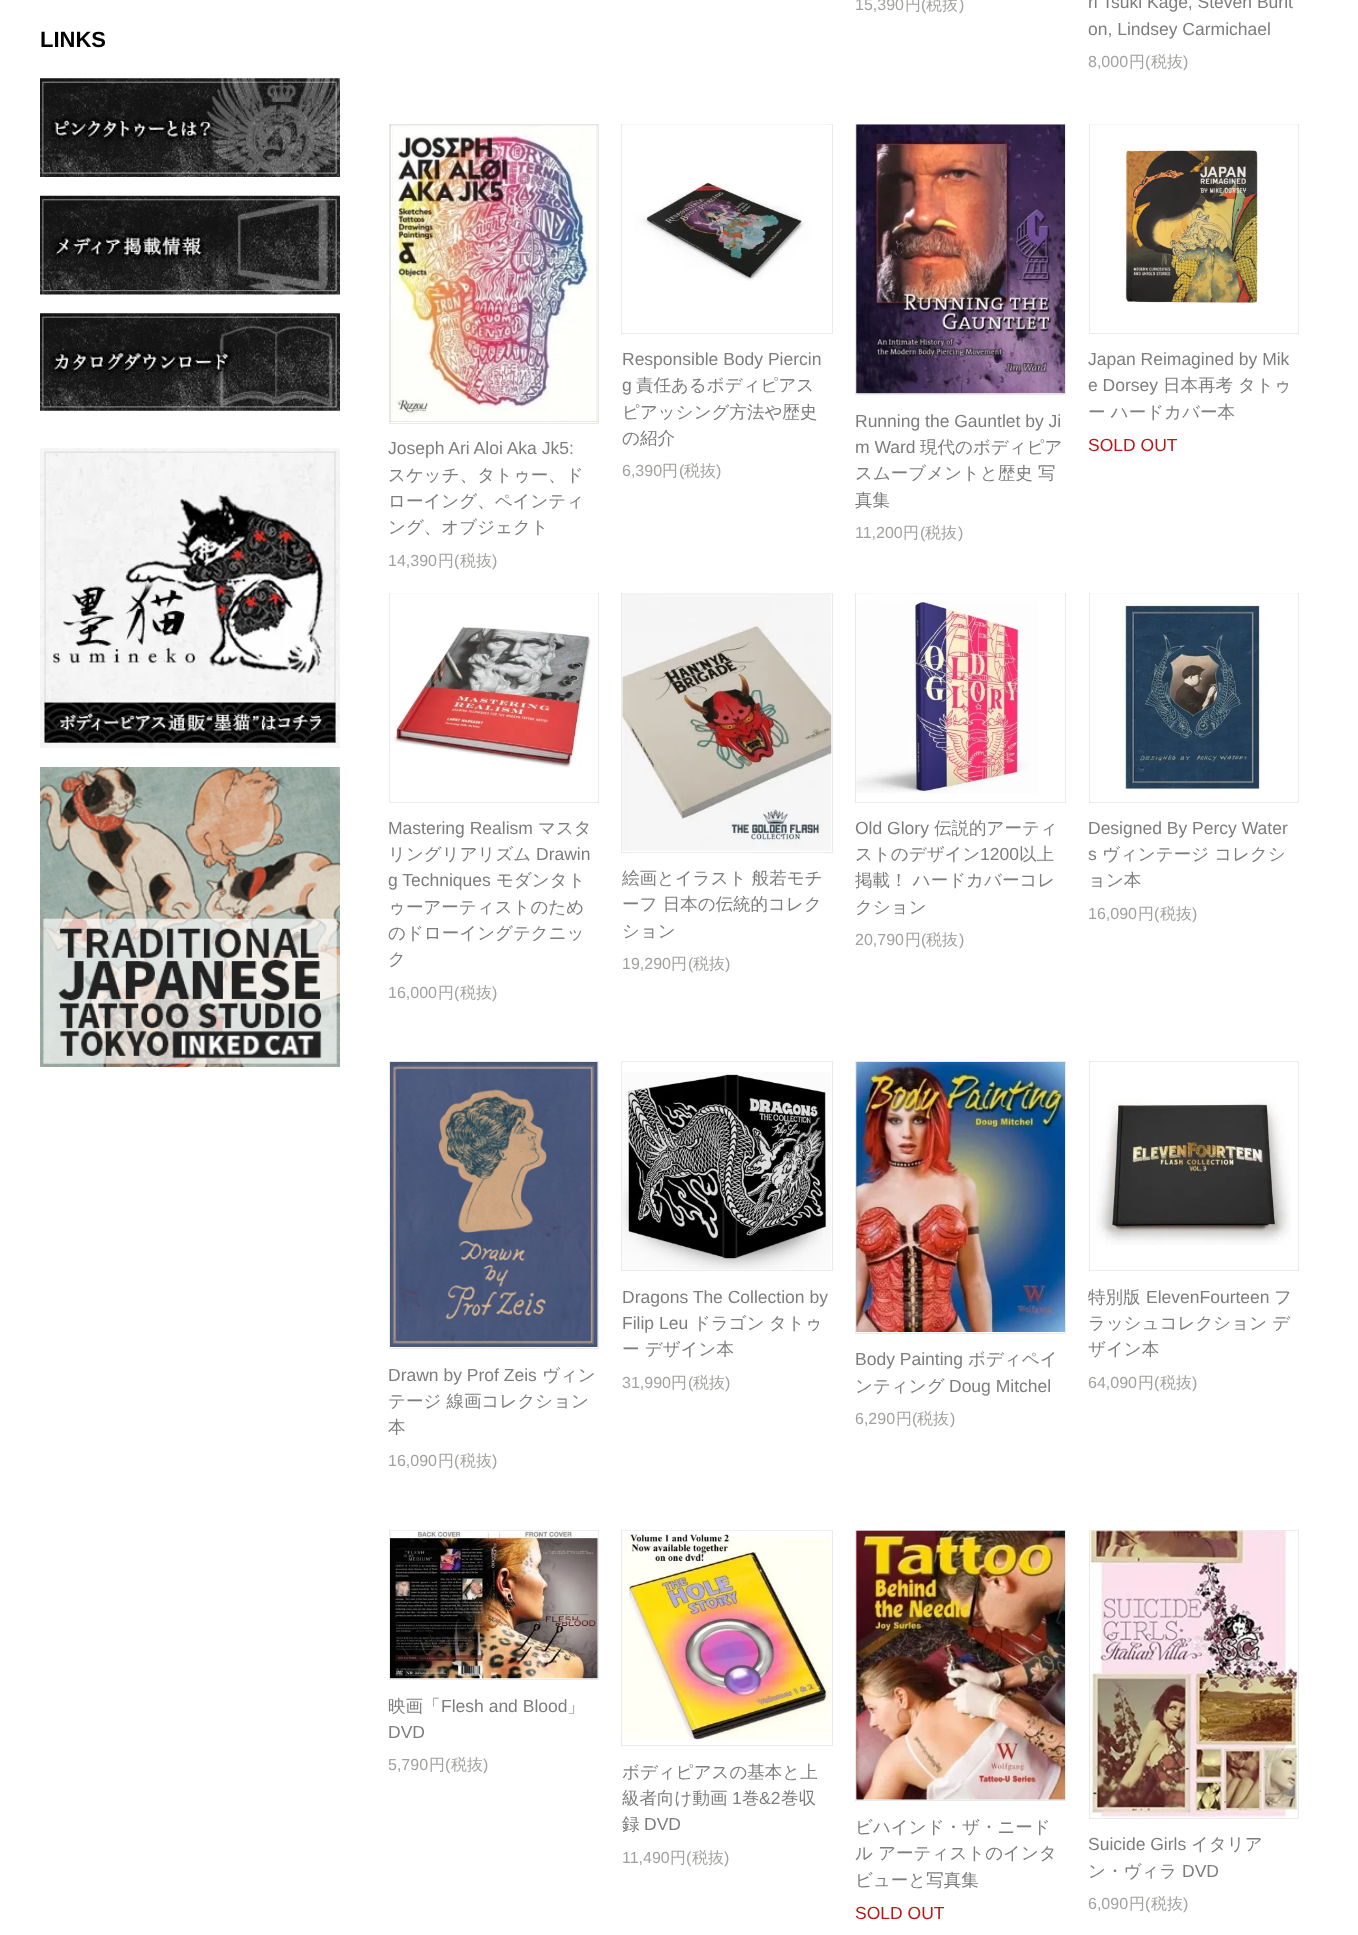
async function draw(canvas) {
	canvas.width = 1358;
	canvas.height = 1935;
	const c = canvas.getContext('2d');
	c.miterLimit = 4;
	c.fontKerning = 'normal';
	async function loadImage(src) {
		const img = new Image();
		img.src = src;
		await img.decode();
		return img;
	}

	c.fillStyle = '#fff';
	c.fillRect(0, 0, 1358, 1935);
	c.font = 'bold 22px Liberation Sans';
	c.fillStyle = '#000';
	c.fillText('LINKS', 40, 47);
	c.drawImage(await loadImage('img1.png'), 40, 78, 300, 99);
	c.drawImage(await loadImage('img2.png'), 40, 195, 300, 100);
	c.drawImage(await loadImage('img3.png'), 40, 313, 300, 98);
	c.drawImage(await loadImage('img4.png'), 40, 448, 300, 300);
	c.drawImage(await loadImage('img5.png'), 40, 767, 300, 300);
	c.font = '16px Liberation Sans';
	c.fillStyle = '#a1a19f';
	c.fillText('15,390', 855, 10);
	c.font = '500 16px WenQuanYi Zen Hei';
	c.fillText('円', 905, 10);
	c.font = '16px Liberation Sans';
	c.fillText('(', 921, 10);
	c.font = '500 16px WenQuanYi Zen Hei';
	c.fillText('税抜', 926, 10);
	c.font = '16px Liberation Sans';
	c.fillText(')', 959, 10);
	c.font = '17.5px Liberation Sans';
	c.fillStyle = '#7d7d7d';
	c.fillText('ri Tsuki Kage, Steven Burlt', 1088, 8);
	c.fillText('on, Lindsey Carmichael', 1088, 35);
	c.font = '16px Liberation Sans';
	c.fillStyle = '#a1a19f';
	c.fillText('8,000', 1088, 67);
	c.font = '500 16px WenQuanYi Zen Hei';
	c.fillText('円', 1129, 67);
	c.font = '16px Liberation Sans';
	c.fillText('(', 1145, 67);
	c.font = '500 16px WenQuanYi Zen Hei';
	c.fillText('税抜', 1151, 67);
	c.font = '16px Liberation Sans';
	c.fillText(')', 1183, 67);
	c.strokeStyle = '#eaeaea';
	c.strokeRect(621.5, 124.5, 211, 209);
	c.drawImage(await loadImage('img6.png'), 622, 124, 209, 157);
	c.font = '17.5px Liberation Sans';
	c.fillStyle = '#7d7d7d';
	c.fillText('Responsible Body Piercin', 622, 365);
	c.fillText('g', 622, 391);
	c.font = '500 17.5px WenQuanYi Zen Hei';
	for (const [text, x, y] of [
		['責任あるボディピアス', 636, 391],
		['ピアッシング方法や歴史', 622, 418],
		['の紹介', 622, 444],
	]) {
		c.fillText(text, x, y);
	}
	c.font = '16px Liberation Sans';
	c.fillStyle = '#a1a19f';
	c.fillText('6,390', 622, 476);
	c.font = '500 16px WenQuanYi Zen Hei';
	c.fillText('円', 662, 476);
	c.font = '16px Liberation Sans';
	c.fillText('(', 679, 476);
	c.font = '500 16px WenQuanYi Zen Hei';
	c.fillText('税抜', 684, 476);
	c.font = '16px Liberation Sans';
	c.fillText(')', 716, 476);
	c.strokeRect(1089.5, 124.5, 209, 209);
	c.drawImage(await loadImage('img7.png'), 1090, 124, 208, 179);
	c.font = '17.5px Liberation Sans';
	c.fillStyle = '#7d7d7d';
	c.fillText('Japan Reimagined by Mik', 1088, 365);
	c.fillText('e Dorsey', 1088, 391);
	c.font = '500 17.5px WenQuanYi Zen Hei';
	for (const [text, x, y] of [
		['日本再考', 1163, 391],
		['タトゥ', 1238, 391],
		['ー ハードカバー本', 1088, 418],
	]) {
		c.fillText(text, x, y);
	}
	c.font = '17.5px Liberation Sans';
	c.fillStyle = '#b81717';
	c.fillText('SOLD OUT', 1088, 451);
	c.strokeRect(389.5, 124.5, 209, 299);
	c.drawImage(await loadImage('img8.png'), 390, 124, 208, 298);
	c.fillStyle = '#7d7d7d';
	c.fillText('Joseph Ari Aloi Aka Jk5:', 388, 454);
	c.font = '500 17.5px WenQuanYi Zen Hei';
	for (const [text, x, y] of [
		['スケッチ、タトゥー、ド', 388, 481],
		['ローイング、ペインティ', 388, 507],
		['ング、オブジェクト', 388, 533],
	]) {
		c.fillText(text, x, y);
	}
	c.font = '16px Liberation Sans';
	c.fillStyle = '#a1a19f';
	c.fillText('14,390', 388, 566);
	c.font = '500 16px WenQuanYi Zen Hei';
	c.fillText('円', 438, 566);
	c.font = '16px Liberation Sans';
	c.fillText('(', 454, 566);
	c.font = '500 16px WenQuanYi Zen Hei';
	c.fillText('税抜', 460, 566);
	c.font = '16px Liberation Sans';
	c.fillText(')', 492, 566);
	c.strokeRect(855.5, 124.5, 210, 270);
	c.drawImage(await loadImage('img9.png'), 856, 124, 209, 270);
	c.font = '17.5px Liberation Sans';
	c.fillStyle = '#7d7d7d';
	c.fillText('Running the Gauntlet by Ji', 855, 427);
	c.fillText('m Ward', 855, 453);
	c.font = '500 17.5px WenQuanYi Zen Hei';
	for (const [text, x, y] of [
		['現代のボディピア', 920, 453],
		['スムーブメントと歴史 写', 855, 479],
		['真集', 855, 506],
	]) {
		c.fillText(text, x, y);
	}
	c.font = '16px Liberation Sans';
	c.fillStyle = '#a1a19f';
	c.fillText('11,200', 855, 538);
	c.font = '500 16px WenQuanYi Zen Hei';
	c.fillText('円', 903, 538);
	c.font = '16px Liberation Sans';
	c.fillText('(', 920, 538);
	c.font = '500 16px WenQuanYi Zen Hei';
	c.fillText('税抜', 925, 538);
	c.font = '16px Liberation Sans';
	c.fillText(')', 958, 538);
	c.strokeRect(389.5, 593.5, 209, 209);
	c.drawImage(await loadImage('img10.png'), 390, 593, 208, 175);
	c.font = '17.5px Liberation Sans';
	c.fillStyle = '#7d7d7d';
	c.fillText('Mastering Realism', 388, 834);
	c.font = '500 17.5px WenQuanYi Zen Hei';
	c.fillText('マスタ', 538, 834);
	c.fillText('リングリアリズム', 388, 860);
	c.font = '17.5px Liberation Sans';
	c.fillText('Drawin', 536, 860);
	c.fillText('g Techniques', 388, 886);
	c.font = '500 17.5px WenQuanYi Zen Hei';
	for (const [text, x, y] of [
		['モダンタト', 496, 886],
		['ゥーアーティストのため', 388, 913],
		['のドローイングテクニッ', 388, 939],
		['ク', 388, 965],
	]) {
		c.fillText(text, x, y);
	}
	c.font = '16px Liberation Sans';
	c.fillStyle = '#a1a19f';
	c.fillText('16,000', 388, 998);
	c.font = '500 16px WenQuanYi Zen Hei';
	c.fillText('円', 438, 998);
	c.font = '16px Liberation Sans';
	c.fillText('(', 454, 998);
	c.font = '500 16px WenQuanYi Zen Hei';
	c.fillText('税抜', 460, 998);
	c.font = '16px Liberation Sans';
	c.fillText(')', 492, 998);
	c.strokeRect(621.5, 593.5, 211, 259);
	c.drawImage(await loadImage('img11.png'), 622, 593, 210, 258);
	c.font = '500 17.5px WenQuanYi Zen Hei';
	c.fillStyle = '#7d7d7d';
	for (const [text, x, y] of [
		['絵画とイラスト 般若モチ', 622, 884],
		['ーフ 日本の伝統的コレク', 622, 910],
		['ション', 622, 937],
	]) {
		c.fillText(text, x, y);
	}
	c.font = '16px Liberation Sans';
	c.fillStyle = '#a1a19f';
	c.fillText('19,290', 622, 969);
	c.font = '500 16px WenQuanYi Zen Hei';
	c.fillText('円', 671, 969);
	c.font = '16px Liberation Sans';
	c.fillText('(', 688, 969);
	c.font = '500 16px WenQuanYi Zen Hei';
	c.fillText('税抜', 693, 969);
	c.font = '16px Liberation Sans';
	c.fillText(')', 725, 969);
	c.strokeRect(855.5, 593.5, 210, 209);
	c.drawImage(await loadImage('img12.png'), 856, 593, 209, 201);
	c.font = '17.5px Liberation Sans';
	c.fillStyle = '#7d7d7d';
	c.fillText('Old Glory', 855, 834);
	c.font = '500 17.5px WenQuanYi Zen Hei';
	c.fillText('伝説的アーティ', 934, 834);
	c.fillText('ストのデザイン', 855, 860);
	c.font = '17.5px Liberation Sans';
	c.fillText('1200', 980, 860);
	c.font = '500 17.5px WenQuanYi Zen Hei';
	for (const [text, x, y] of [
		['以上', 1019, 860],
		['掲載！ ハードカバーコレ', 855, 886],
		['クション', 855, 913],
	]) {
		c.fillText(text, x, y);
	}
	c.font = '16px Liberation Sans';
	c.fillStyle = '#a1a19f';
	c.fillText('20,790', 855, 945);
	c.font = '500 16px WenQuanYi Zen Hei';
	c.fillText('円', 905, 945);
	c.font = '16px Liberation Sans';
	c.fillText('(', 921, 945);
	c.font = '500 16px WenQuanYi Zen Hei';
	c.fillText('税抜', 926, 945);
	c.font = '16px Liberation Sans';
	c.fillText(')', 959, 945);
	c.strokeRect(1089.5, 593.5, 209, 209);
	c.drawImage(await loadImage('img13.png'), 1090, 593, 208, 197);
	c.font = '17.5px Liberation Sans';
	c.fillStyle = '#7d7d7d';
	c.fillText('Designed By Percy Water', 1088, 834);
	c.fillText('s', 1088, 860);
	c.font = '500 17.5px WenQuanYi Zen Hei';
	c.fillText('ヴィンテージ コレクシ', 1102, 860);
	c.fillText('ョン本', 1088, 886);
	c.font = '16px Liberation Sans';
	c.fillStyle = '#a1a19f';
	c.fillText('16,090', 1088, 919);
	c.font = '500 16px WenQuanYi Zen Hei';
	c.fillText('円', 1138, 919);
	c.font = '16px Liberation Sans';
	c.fillText('(', 1154, 919);
	c.font = '500 16px WenQuanYi Zen Hei';
	c.fillText('税抜', 1160, 919);
	c.font = '16px Liberation Sans';
	c.fillText(')', 1192, 919);
	c.strokeRect(389.5, 1061.5, 209, 287);
	c.drawImage(await loadImage('img14.png'), 390, 1062, 208, 285);
	c.font = '17.5px Liberation Sans';
	c.fillStyle = '#7d7d7d';
	c.fillText('Drawn by Prof Zeis', 388, 1381);
	c.font = '500 17.5px WenQuanYi Zen Hei';
	for (const [text, x, y] of [
		['ヴィン', 542, 1381],
		['テージ 線画コレクション', 388, 1407],
		['本', 388, 1433],
	]) {
		c.fillText(text, x, y);
	}
	c.font = '16px Liberation Sans';
	c.fillStyle = '#a1a19f';
	c.fillText('16,090', 388, 1466);
	c.font = '500 16px WenQuanYi Zen Hei';
	c.fillText('円', 438, 1466);
	c.font = '16px Liberation Sans';
	c.fillText('(', 454, 1466);
	c.font = '500 16px WenQuanYi Zen Hei';
	c.fillText('税抜', 460, 1466);
	c.font = '16px Liberation Sans';
	c.fillText(')', 492, 1466);
	c.strokeRect(621.5, 1061.5, 211, 209);
	c.drawImage(await loadImage('img15.png'), 622, 1072, 209, 198);
	c.font = '17.5px Liberation Sans';
	c.fillStyle = '#7d7d7d';
	c.fillText('Dragons The Collection by', 622, 1303);
	c.fillText('Filip Leu', 622, 1329);
	c.font = '500 17.5px WenQuanYi Zen Hei';
	for (const [text, x, y] of [
		['ドラゴン', 693, 1329],
		['タトゥ', 769, 1329],
		['ー デザイン本', 622, 1355],
	]) {
		c.fillText(text, x, y);
	}
	c.font = '16px Liberation Sans';
	c.fillStyle = '#a1a19f';
	c.fillText('31,990', 622, 1388);
	c.font = '500 16px WenQuanYi Zen Hei';
	c.fillText('円', 671, 1388);
	c.font = '16px Liberation Sans';
	c.fillText('(', 688, 1388);
	c.font = '500 16px WenQuanYi Zen Hei';
	c.fillText('税抜', 693, 1388);
	c.font = '16px Liberation Sans';
	c.fillText(')', 725, 1388);
	c.strokeRect(855.5, 1061.5, 210, 272);
	c.drawImage(await loadImage('img16.png'), 856, 1062, 209, 270);
	c.font = '17.5px Liberation Sans';
	c.fillStyle = '#7d7d7d';
	c.fillText('Body Painting', 855, 1365);
	c.font = '500 17.5px WenQuanYi Zen Hei';
	c.fillText('ボディペイ', 968, 1365);
	c.fillText('ンティング', 855, 1392);
	c.font = '17.5px Liberation Sans';
	c.fillText('Doug Mitchel', 949, 1392);
	c.font = '16px Liberation Sans';
	c.fillStyle = '#a1a19f';
	c.fillText('6,290', 855, 1424);
	c.font = '500 16px WenQuanYi Zen Hei';
	c.fillText('円', 896, 1424);
	c.font = '16px Liberation Sans';
	c.fillText('(', 912, 1424);
	c.font = '500 16px WenQuanYi Zen Hei';
	c.fillText('税抜', 917, 1424);
	c.font = '16px Liberation Sans';
	c.fillText(')', 950, 1424);
	c.strokeRect(1089.5, 1061.5, 209, 209);
	c.drawImage(await loadImage('img17.png'), 1096, 1099, 195, 146);
	c.font = '500 17.5px WenQuanYi Zen Hei';
	c.fillStyle = '#7d7d7d';
	c.fillText('特別版', 1088, 1303);
	c.font = '17.5px Liberation Sans';
	c.fillText('ElevenFourteen', 1146, 1303);
	c.font = '500 17.5px WenQuanYi Zen Hei';
	for (const [text, x, y] of [
		['フ', 1274, 1303],
		['ラッシュコレクション デ', 1088, 1329],
		['ザイン本', 1088, 1355],
	]) {
		c.fillText(text, x, y);
	}
	c.font = '16px Liberation Sans';
	c.fillStyle = '#a1a19f';
	c.fillText('64,090', 1088, 1388);
	c.font = '500 16px WenQuanYi Zen Hei';
	c.fillText('円', 1138, 1388);
	c.font = '16px Liberation Sans';
	c.fillText('(', 1154, 1388);
	c.font = '500 16px WenQuanYi Zen Hei';
	c.fillText('税抜', 1160, 1388);
	c.font = '16px Liberation Sans';
	c.fillText(')', 1192, 1388);
	c.strokeRect(389.5, 1530.5, 209, 149);
	c.drawImage(await loadImage('img18.png'), 390, 1530, 208, 149);
	c.font = '500 17.5px WenQuanYi Zen Hei';
	c.fillStyle = '#7d7d7d';
	c.fillText('映画「', 388, 1712);
	c.font = '17.5px Liberation Sans';
	c.fillText('Flesh and Blood', 441, 1712);
	c.font = '500 17.5px WenQuanYi Zen Hei';
	c.fillText('」', 567, 1712);
	c.font = '17.5px Liberation Sans';
	c.fillText('DVD', 388, 1738);
	c.font = '16px Liberation Sans';
	c.fillStyle = '#a1a19f';
	c.fillText('5,790', 388, 1770);
	c.font = '500 16px WenQuanYi Zen Hei';
	c.fillText('円', 429, 1770);
	c.font = '16px Liberation Sans';
	c.fillText('(', 445, 1770);
	c.font = '500 16px WenQuanYi Zen Hei';
	c.fillText('税抜', 451, 1770);
	c.font = '16px Liberation Sans';
	c.fillText(')', 483, 1770);
	c.strokeRect(621.5, 1530.5, 211, 215);
	c.drawImage(await loadImage('img19.png'), 622, 1530, 210, 212);
	c.font = '500 17.5px WenQuanYi Zen Hei';
	c.fillStyle = '#7d7d7d';
	c.fillText('ボディピアスの基本と上', 622, 1778);
	c.fillText('級者向け動画', 622, 1804);
	c.font = '17.5px Liberation Sans';
	c.fillText('1', 732, 1804);
	c.font = '500 17.5px WenQuanYi Zen Hei';
	c.fillText('巻', 742, 1804);
	c.font = '17.5px Liberation Sans';
	c.fillText('&2', 759, 1804);
	c.font = '500 17.5px WenQuanYi Zen Hei';
	c.fillText('巻収', 781, 1804);
	c.fillText('録', 622, 1830);
	c.font = '17.5px Liberation Sans';
	c.fillText('DVD', 644, 1830);
	c.font = '16px Liberation Sans';
	c.fillStyle = '#a1a19f';
	c.fillText('11,490', 622, 1863);
	c.font = '500 16px WenQuanYi Zen Hei';
	c.fillText('円', 670, 1863);
	c.font = '16px Liberation Sans';
	c.fillText('(', 686, 1863);
	c.font = '500 16px WenQuanYi Zen Hei';
	c.fillText('税抜', 692, 1863);
	c.font = '16px Liberation Sans';
	c.fillText(')', 724, 1863);
	c.strokeRect(855.5, 1530.5, 210, 270);
	c.drawImage(await loadImage('img20.png'), 856, 1530, 209, 270);
	c.font = '500 17.5px WenQuanYi Zen Hei';
	c.fillStyle = '#7d7d7d';
	for (const [text, x, y] of [
		['ビハインド・ザ・ニード', 855, 1833],
		['ル アーティストのインタ', 855, 1859],
		['ビューと写真集', 855, 1886],
	]) {
		c.fillText(text, x, y);
	}
	c.font = '17.5px Liberation Sans';
	c.fillStyle = '#b81717';
	c.fillText('SOLD OUT', 855, 1919);
	c.strokeRect(1089.5, 1530.5, 209, 288);
	c.drawImage(await loadImage('img21.png'), 1090, 1530, 208, 287);
	c.fillStyle = '#7d7d7d';
	c.fillText('Suicide Girls', 1088, 1850);
	c.font = '500 17.5px WenQuanYi Zen Hei';
	c.fillText('イタリア', 1191, 1850);
	c.fillText('ン・ヴィラ', 1088, 1877);
	c.font = '17.5px Liberation Sans';
	c.fillText('DVD', 1182, 1877);
	c.font = '16px Liberation Sans';
	c.fillStyle = '#a1a19f';
	c.fillText('6,090', 1088, 1909);
	c.font = '500 16px WenQuanYi Zen Hei';
	c.fillText('円', 1129, 1909);
	c.font = '16px Liberation Sans';
	c.fillText('(', 1145, 1909);
	c.font = '500 16px WenQuanYi Zen Hei';
	c.fillText('税抜', 1151, 1909);
	c.font = '16px Liberation Sans';
	c.fillText(')', 1183, 1909);
}

draw(document.querySelector('canvas'));
